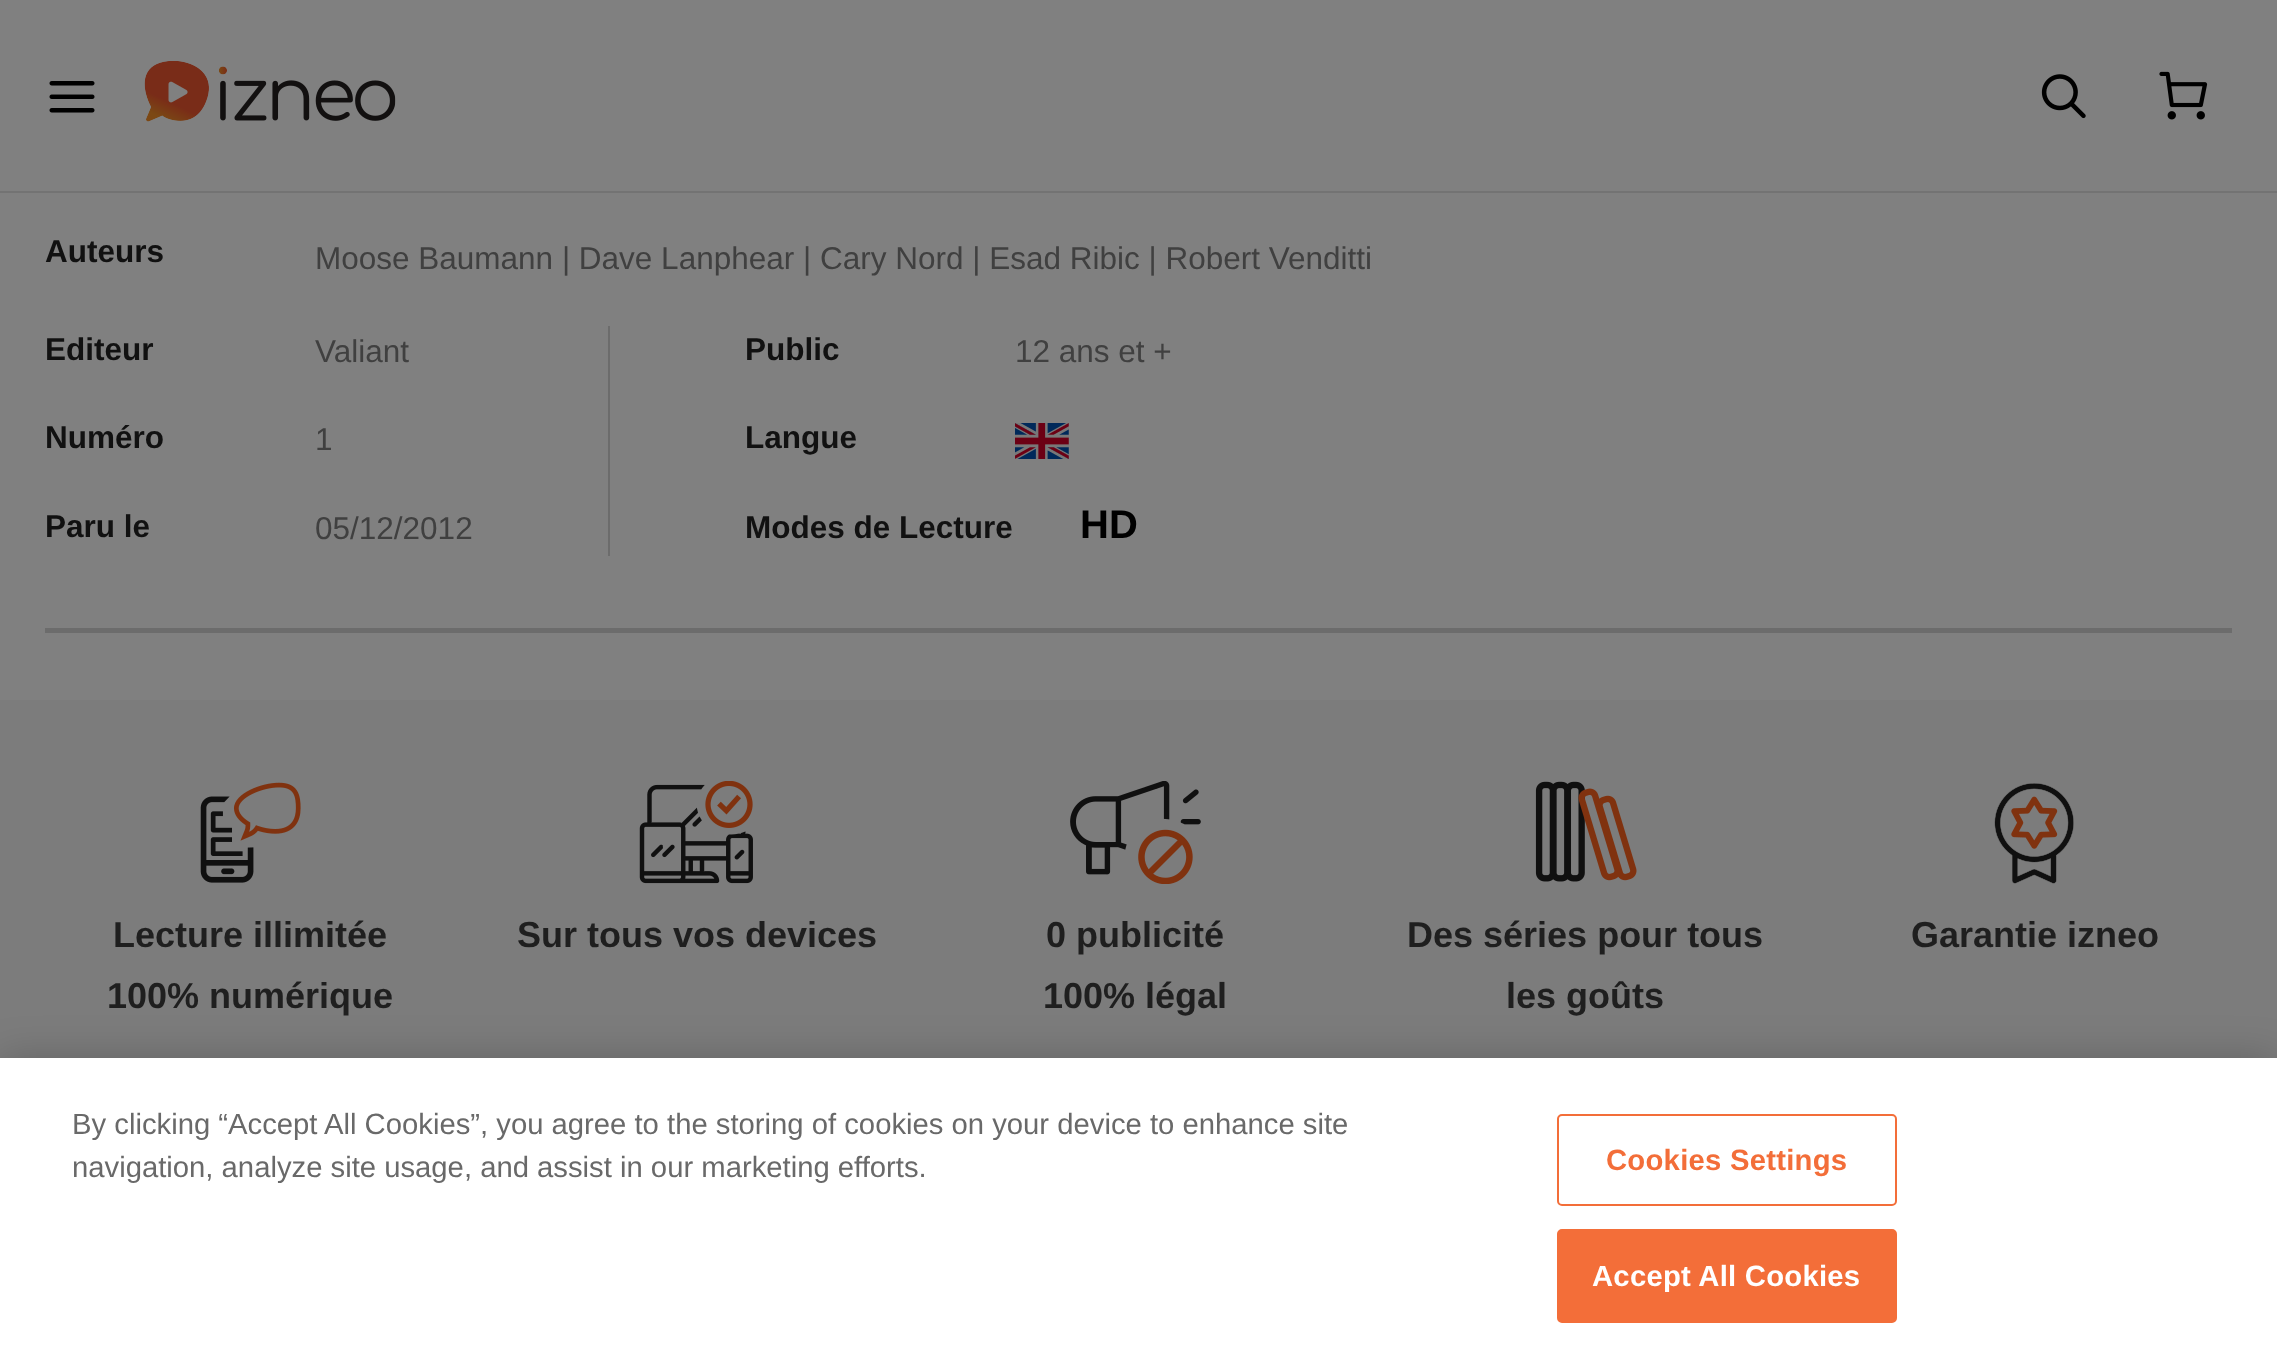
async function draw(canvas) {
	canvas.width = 2277;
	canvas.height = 1366;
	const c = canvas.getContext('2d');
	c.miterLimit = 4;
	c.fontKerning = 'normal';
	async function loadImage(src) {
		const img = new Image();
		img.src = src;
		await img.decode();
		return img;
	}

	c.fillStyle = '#808080';
	c.fillRect(0, 0, 2277, 1366);
	c.fillStyle = '#737373';
	c.fillRect(0, 191, 2277, 2);
	c.drawImage(await loadImage('img1.png'), 49, 81, 46, 32);
	c.drawImage(await loadImage('img2.png'), 144, 61, 252, 61);
	c.drawImage(await loadImage('img3.png'), 2041, 74, 45, 45);
	c.drawImage(await loadImage('img4.png'), 2159, 71, 49, 49);
	c.font = 'bold 31.5px Liberation Sans';
	c.fillStyle = '#111';
	c.fillText('Auteurs', 45, 262);
	c.font = '31.5px Liberation Sans';
	c.fillStyle = '#404040';
	c.fillText('Moose Baumann | Dave Lanphear | Cary Nord | Esad Ribic | Robert Venditti', 315, 269);
	c.font = 'bold 31.5px Liberation Sans';
	c.fillStyle = '#111';
	c.fillText('Editeur', 45, 360);
	c.font = '31.5px Liberation Sans';
	c.fillStyle = '#404040';
	c.fillText('Valiant', 315, 362);
	c.font = 'bold 31.5px Liberation Sans';
	c.fillStyle = '#111';
	c.fillText('Numéro', 45, 448);
	c.font = '31.5px Liberation Sans';
	c.fillStyle = '#404040';
	c.fillText('1', 315, 450);
	c.font = 'bold 31.5px Liberation Sans';
	c.fillStyle = '#111';
	c.fillText('Paru le', 45, 537);
	c.font = '31.5px Liberation Sans';
	c.fillStyle = '#404040';
	c.fillText('05/12/2012', 315, 539);
	c.fillStyle = '#6c6c6c';
	c.fillRect(608, 326, 2, 230);
	c.font = 'bold 31.5px Liberation Sans';
	c.fillStyle = '#111';
	c.fillText('Public', 745, 360);
	c.font = '31.5px Liberation Sans';
	c.fillStyle = '#404040';
	c.fillText('12 ans et +', 1015, 362);
	c.font = 'bold 31.5px Liberation Sans';
	c.fillStyle = '#111';
	c.fillText('Langue', 745, 448);
	c.drawImage(await loadImage('img5.png'), 1015, 423, 54, 36);
	c.fillText('Modes de Lecture', 745, 538);
	c.font = 'bold 40px Liberation Sans';
	c.fillStyle = '#000';
	c.fillText('HD', 1080, 538);
	c.fillStyle = '#6c6c6c';
	c.fillRect(45, 628, 2187, 5);
	c.fillStyle = '#7c7c7c';
	c.fillRect(0, 700, 2277, 358);
	c.drawImage(await loadImage('img6.png'), 200, 782, 101, 101);
	c.font = 'bold 36px Liberation Sans';
	c.fillStyle = '#1f1f1f';
	c.fillText('Lecture illimitée', 113, 947);
	c.fillText('100% numérique', 107, 1008);
	c.drawImage(await loadImage('img7.png'), 639, 781, 114, 103);
	c.fillText('Sur tous vos devices', 517, 947);
	c.drawImage(await loadImage('img8.png'), 1070, 781, 131, 103);
	c.fillText('0 publicité', 1046, 947);
	c.fillText('100% légal', 1043, 1008);
	c.drawImage(await loadImage('img9.png'), 1535, 781, 102, 101);
	c.fillText('Des séries pour tous', 1407, 947);
	c.fillText('les goûts', 1506, 1008);
	c.drawImage(await loadImage('img10.png'), 1994, 783, 80, 101);
	c.fillText('Garantie izneo', 1911, 947);
	c.fillStyle = '#00000033';
	c.filter = 'blur(20px)';
	c.beginPath();
	c.rect(0, 1058, 2277, 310);
	c.fill();
	c.filter = 'none';
	c.fillStyle = '#fff';
	c.fillRect(0, 1058, 2277, 308);
	c.font = '29.25px Liberation Sans';
	c.fillStyle = '#696969';
	c.fillText('By clicking “Accept All Cookies”, you agree to the storing of cookies on your device to enhance site', 72, 1134);
	c.fillText('navigation, analyze site usage, and assist in our marketing efforts.', 72, 1177);
	c.beginPath();
	c.roundRect(1558, 1115, 338, 90, 4);
	c.strokeStyle = '#f36e39';
	c.lineWidth = 2;
	c.stroke();
	c.letterSpacing = '0.25px';
	c.font = 'bold 29.25px Liberation Sans';
	c.fillStyle = '#f36e39';
	c.fillText('Cookies Settings', 1606, 1170);
	c.beginPath();
	c.roundRect(1558, 1230, 338, 92, 4);
	c.fill();
	c.stroke();
	c.fillStyle = '#fff';
	c.fillText('Accept All Cookies', 1592, 1286);
}

draw(document.querySelector('canvas'));
